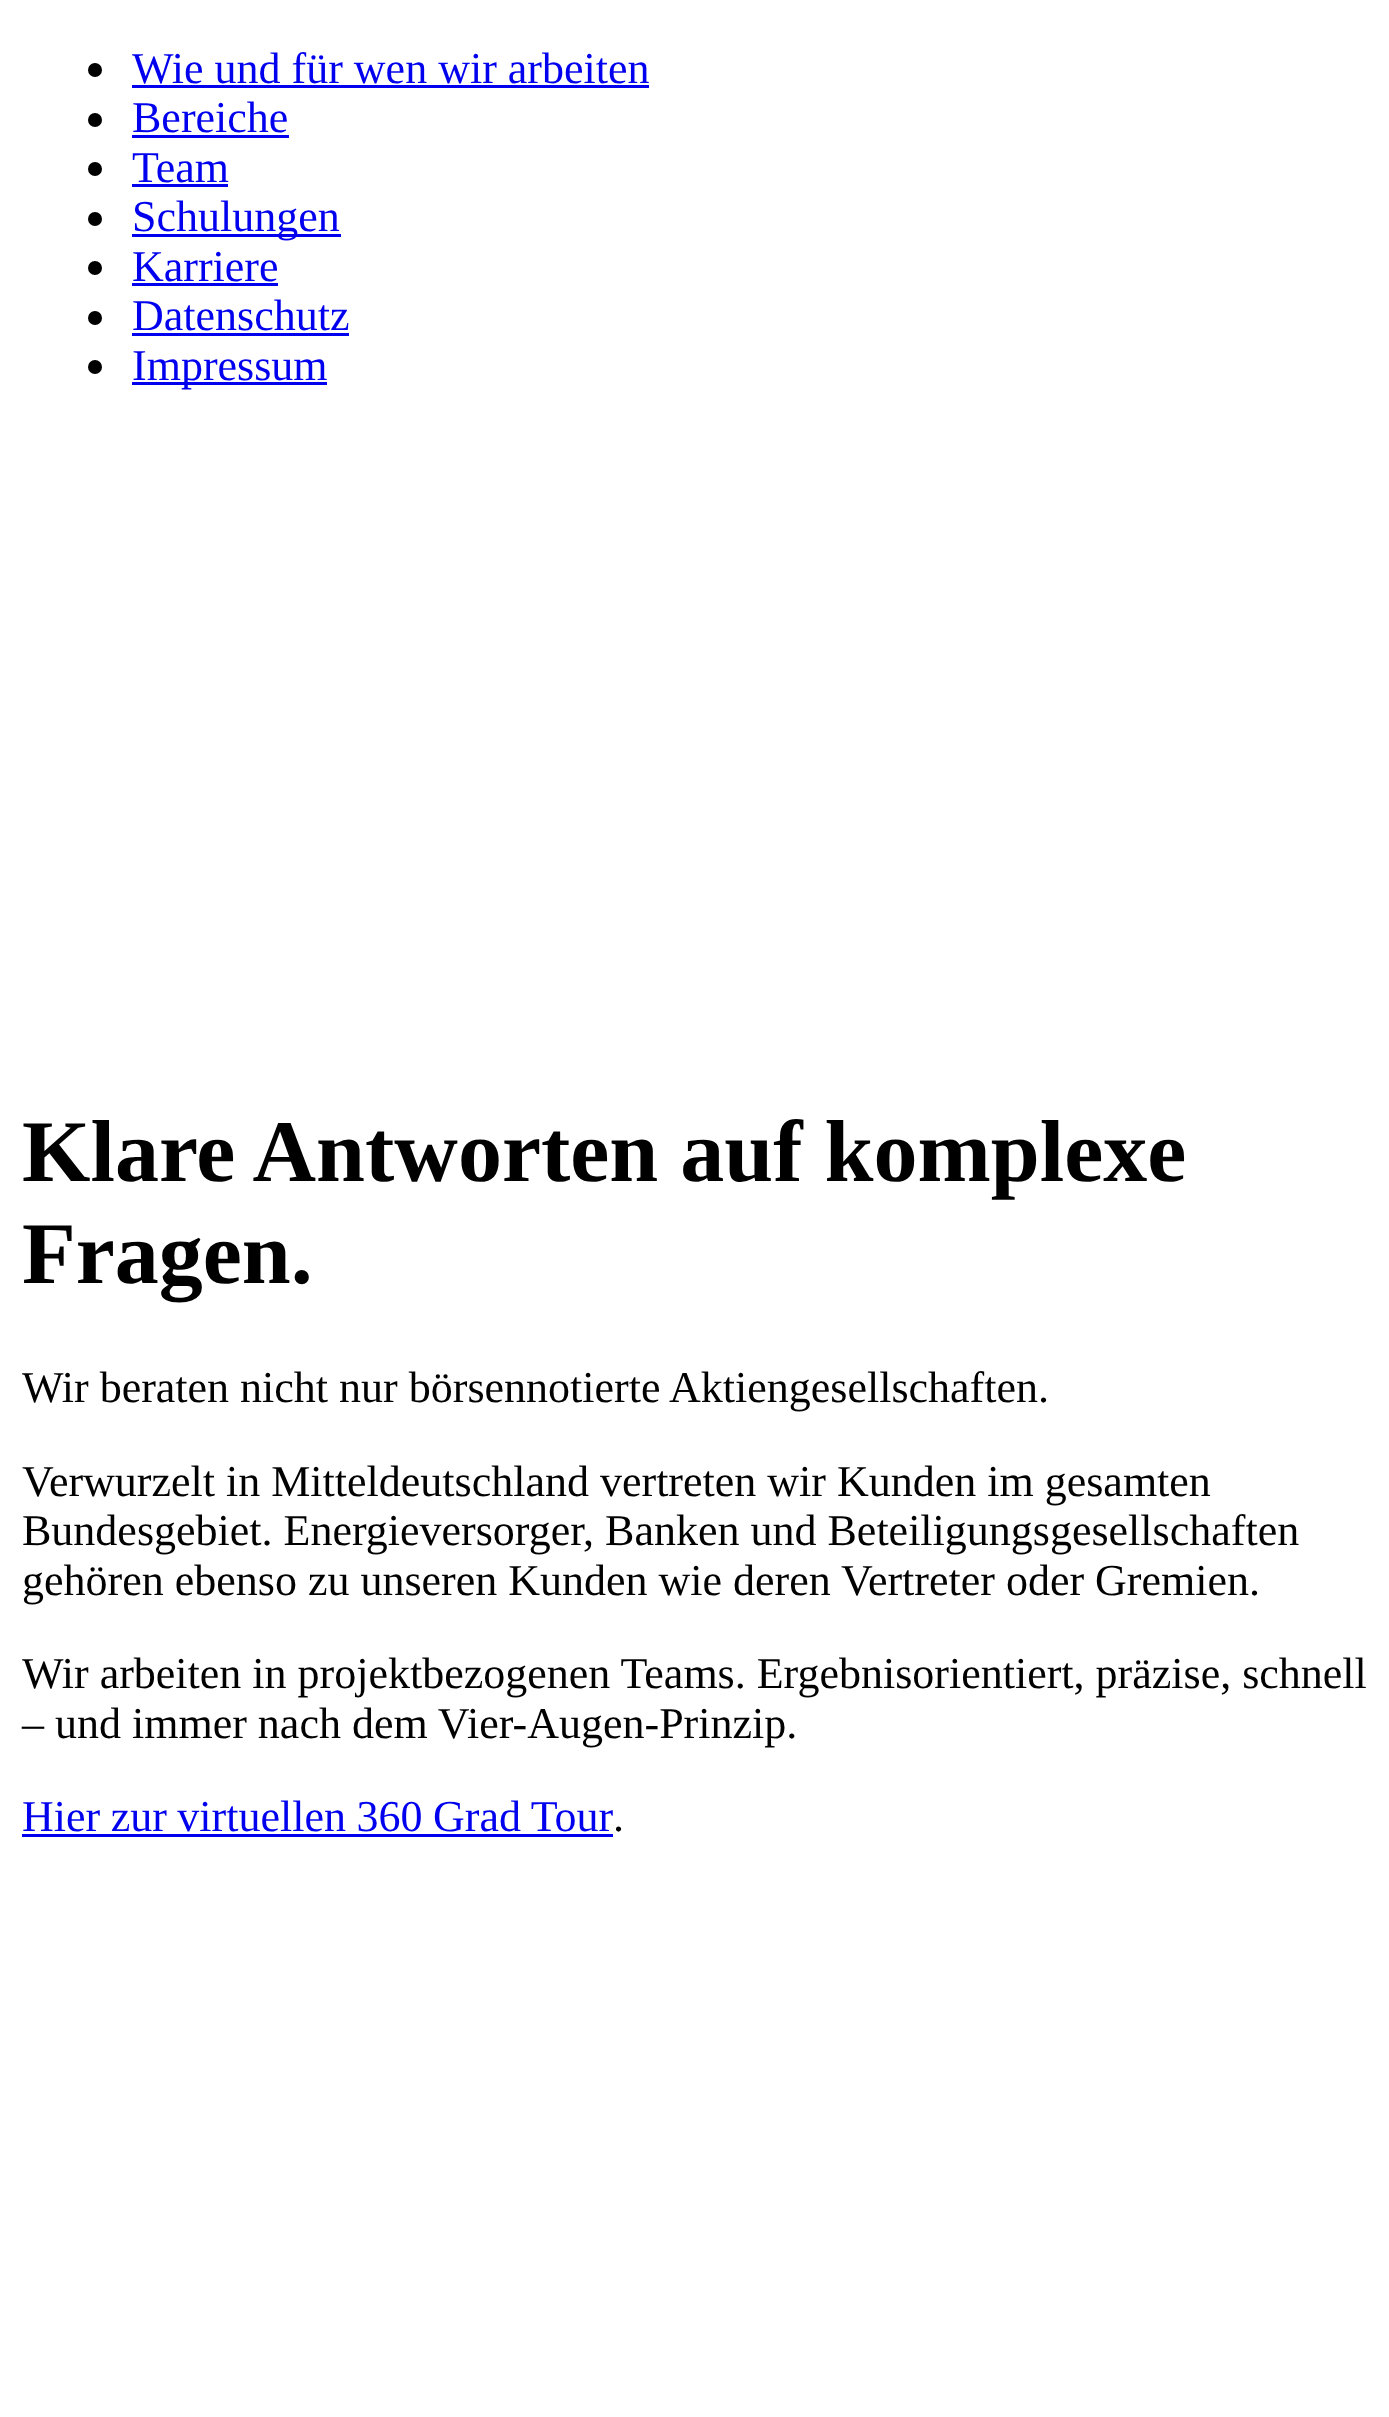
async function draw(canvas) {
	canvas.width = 1389;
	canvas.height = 2417;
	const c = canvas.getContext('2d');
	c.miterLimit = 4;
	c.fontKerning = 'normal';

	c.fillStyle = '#fff';
	c.fillRect(0, 0, 1389, 2417);
	c.fillStyle = '#000';
	c.beginPath();
	c.arc(95, 70, 7, 0, 2 * Math.PI);
	c.fill();
	c.font = '44px Liberation Serif';
	c.fillStyle = '#00e';
	c.fillText('Wie und für wen wir arbeiten', 132, 83);
	c.fillRect(132, 85, 517, 3);
	c.fillStyle = '#000';
	c.beginPath();
	c.arc(95, 120, 7, 0, 2 * Math.PI);
	c.fill();
	c.fillStyle = '#00e';
	c.fillText('Bereiche', 132, 132);
	c.fillRect(132, 135, 157, 3);
	c.fillStyle = '#000';
	c.beginPath();
	c.arc(95, 169, 7, 0, 2 * Math.PI);
	c.fill();
	c.fillStyle = '#00e';
	c.fillText('Team', 132, 182);
	c.fillRect(132, 184, 96, 3);
	c.fillStyle = '#000';
	c.beginPath();
	c.arc(95, 219, 7, 0, 2 * Math.PI);
	c.fill();
	c.fillStyle = '#00e';
	c.fillRect(132, 234, 209, 3);
	c.fillText('Schulungen', 132, 231);
	c.fillStyle = '#000';
	c.beginPath();
	c.arc(95, 268, 7, 0, 2 * Math.PI);
	c.fill();
	c.fillStyle = '#00e';
	c.fillText('Karriere', 132, 281);
	c.fillRect(132, 283, 146, 3);
	c.fillStyle = '#000';
	c.beginPath();
	c.arc(95, 318, 7, 0, 2 * Math.PI);
	c.fill();
	c.fillStyle = '#00e';
	c.fillText('Datenschutz', 132, 330);
	c.fillRect(132, 333, 217, 3);
	c.fillStyle = '#000';
	c.beginPath();
	c.arc(95, 367, 7, 0, 2 * Math.PI);
	c.fill();
	c.fillStyle = '#00e';
	c.fillRect(132, 382, 195, 3);
	c.fillText('Impressum', 132, 380);
	c.font = 'bold 88px Liberation Serif';
	c.fillStyle = '#000';
	c.fillText('Klare Antworten auf komplexe', 22, 1181);
	c.fillText('Fragen.', 22, 1283);
	c.font = '44px Liberation Serif';
	for (const [text, x, y] of [
		['Wir beraten nicht nur börsennotierte Aktiengesellschaften.', 22, 1402],
		['Verwurzelt in Mitteldeutschland vertreten wir Kunden im gesamten', 22, 1496],
		['Bundesgebiet. Energieversorger, Banken und Beteiligungsgesellschaften', 22, 1545],
		['gehören ebenso zu unseren Kunden wie deren Vertreter oder Gremien.', 22, 1595],
		['Wir arbeiten in projektbezogenen Teams. Ergebnisorientiert, präzise, schnell', 22, 1688],
		['– und immer nach dem Vier-Augen-Prinzip.', 22, 1738],
	]) {
		c.fillText(text, x, y);
	}
	c.wordSpacing = '-0.5px';
	c.fillStyle = '#00e';
	c.fillText('Hier zur virtuellen 360 Grad Tour', 22, 1831);
	c.fillRect(22, 1834, 591, 3);
	c.wordSpacing = '0px';
	c.fillStyle = '#000';
	c.fillText('.', 613, 1831);
}

draw(document.querySelector('canvas'));
